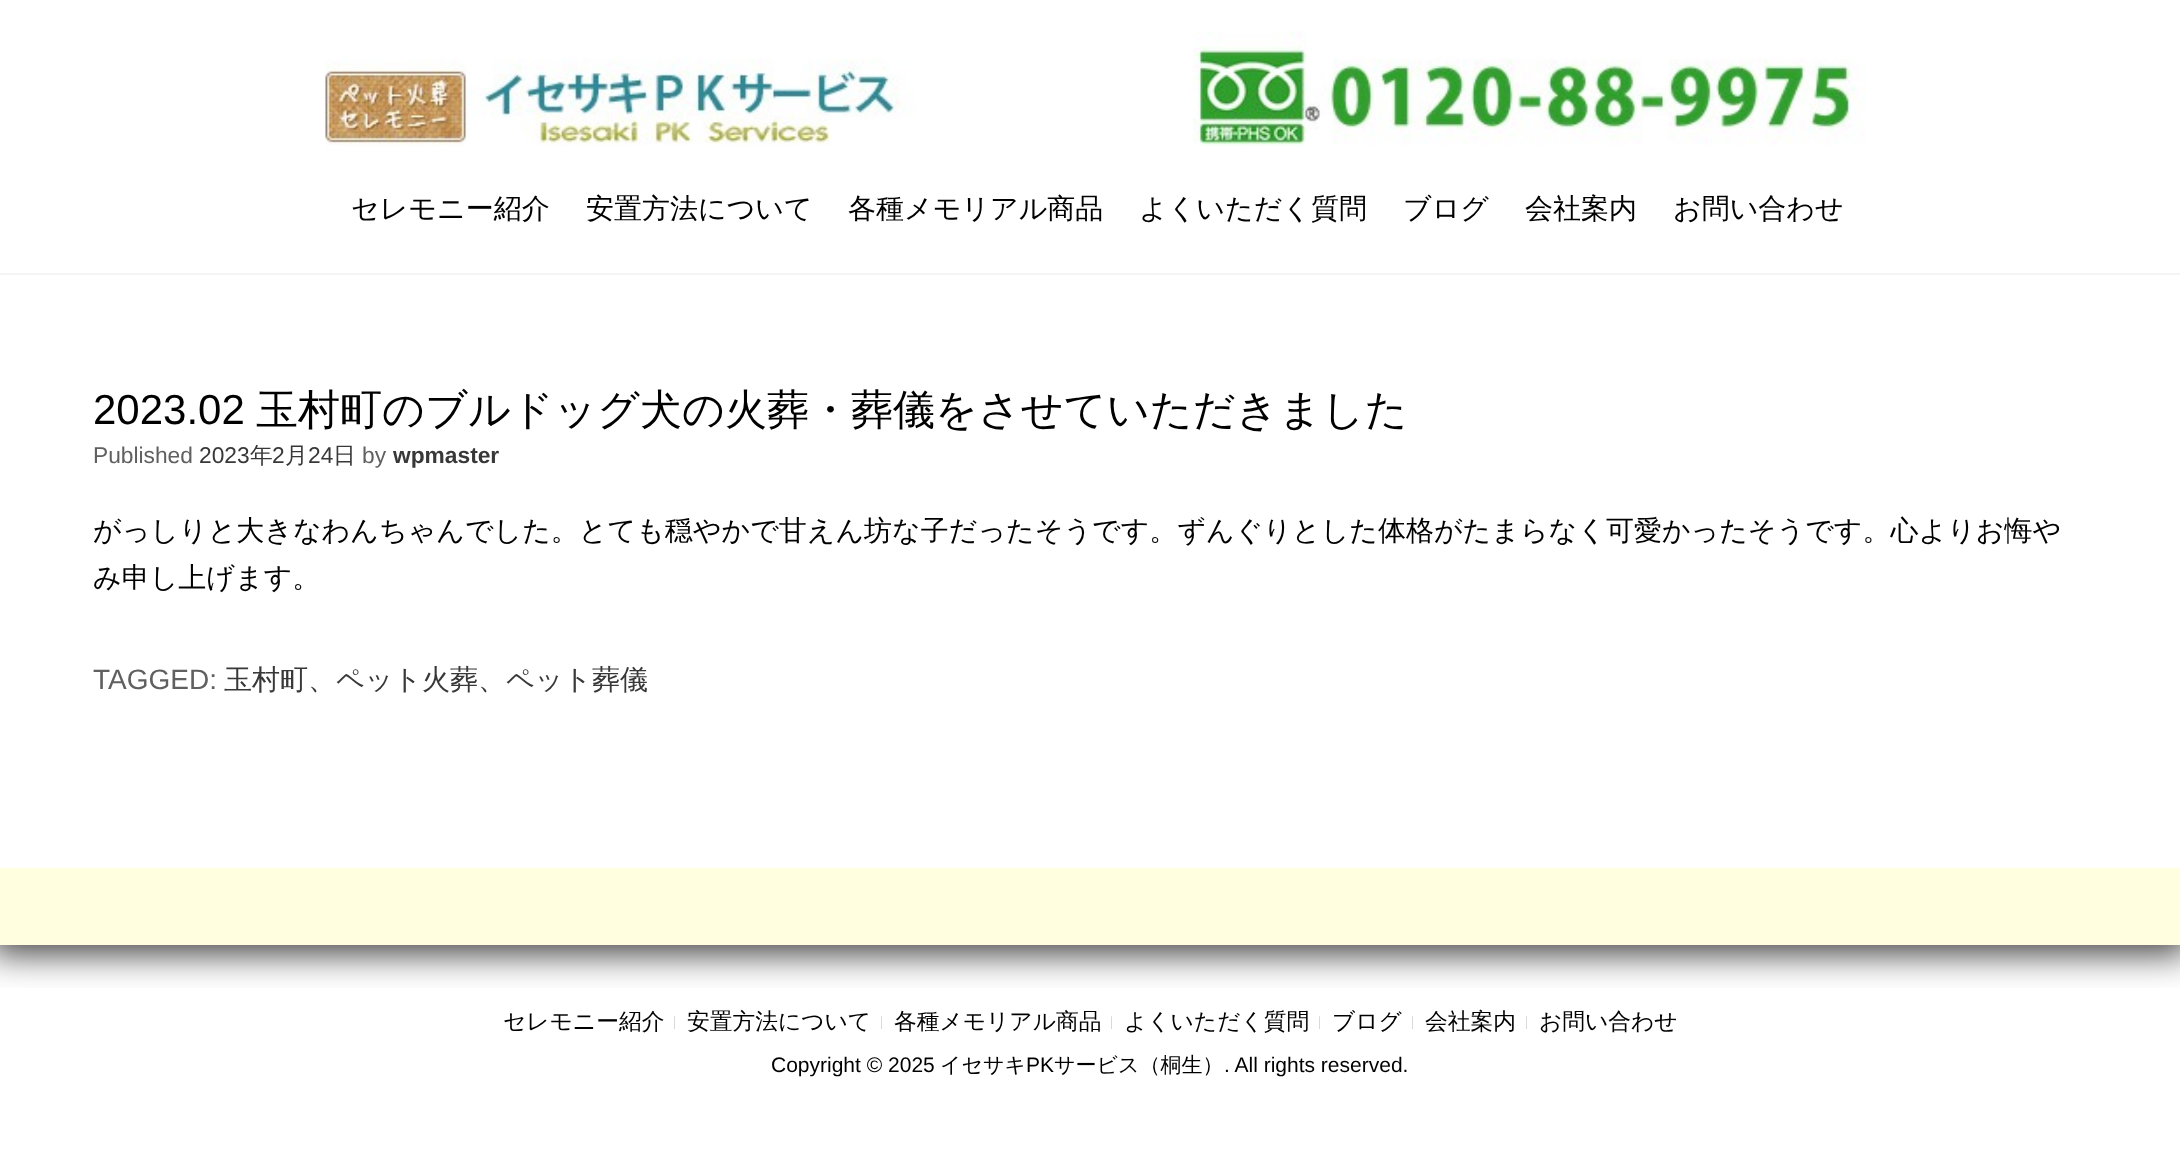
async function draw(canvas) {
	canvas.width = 2180;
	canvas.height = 1168;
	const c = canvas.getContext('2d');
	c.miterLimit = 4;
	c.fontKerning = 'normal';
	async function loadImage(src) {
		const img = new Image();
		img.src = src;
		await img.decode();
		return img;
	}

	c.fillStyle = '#fff';
	c.fillRect(0, 0, 2180, 1168);
	c.save();
	c.beginPath();
	c.rect(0, 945, 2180, 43);
	c.clip();
	c.fillStyle = '#000000bf';
	c.filter = 'blur(17.5px)';
	c.beginPath();
	c.rect(-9, -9, 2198, 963);
	c.fill();
	c.filter = 'none';
	c.restore();
	c.fillStyle = '#f4f4f4';
	c.fillRect(0, 273, 2180, 2);
	c.drawImage(await loadImage('img1.png'), 324, 31, 1542, 115);
	c.font = '500 28px WenQuanYi Zen Hei';
	c.fillStyle = '#000';
	for (const [text, x, y] of [
		['セレモニー紹介', 351, 218],
		['安置方法について', 586, 218],
		['各種メモリアル商品', 848, 218],
		['よくいただく質問', 1139, 218],
		['ブログ', 1403, 218],
		['会社案内', 1525, 218],
		['お問い合わせ', 1673, 218],
	]) {
		c.fillText(text, x, y);
	}
	c.font = '42px Liberation Sans';
	c.fillText('2023.02', 93, 424);
	c.font = '500 42px WenQuanYi Zen Hei';
	c.fillText('玉村町のブルドッグ犬の火葬・葬儀をさせていただきました', 256, 424);
	c.font = '22.75px Liberation Sans';
	c.fillStyle = '#606060';
	c.fillText('Published', 93, 463);
	c.fillStyle = '#383838';
	c.fillText('2023', 199, 463);
	c.font = '500 22.75px WenQuanYi Zen Hei';
	c.fillText('年', 250, 463);
	c.font = '22.75px Liberation Sans';
	c.fillText('2', 272, 463);
	c.font = '500 22.75px WenQuanYi Zen Hei';
	c.fillText('月', 285, 463);
	c.font = '22.75px Liberation Sans';
	c.fillText('24', 308, 463);
	c.font = '500 22.75px WenQuanYi Zen Hei';
	c.fillText('日', 333, 463);
	c.font = '22.75px Liberation Sans';
	c.fillStyle = '#606060';
	c.fillText('by', 362, 463);
	c.font = 'bold 22.75px Liberation Sans';
	c.fillStyle = '#383838';
	c.fillText('wpmaster', 393, 463);
	c.font = '500 28px WenQuanYi Zen Hei';
	c.fillStyle = '#000';
	c.fillText('がっしりと大きなわんちゃんでした。とても穏やかで甘えん坊な子だったそうです。ずんぐりとした体格がたまらなく可愛かったそうです。心よりお悔や', 93, 540);
	c.fillText('み申し上げます。', 93, 587);
	c.font = '28px Liberation Sans';
	c.fillStyle = '#606060';
	c.fillText('TAGGED:', 93, 689);
	c.font = '500 28px WenQuanYi Zen Hei';
	c.fillStyle = '#383838';
	c.fillText('玉村町、ペット火葬、ペット葬儀', 224, 689);
	c.fillStyle = '#ffffe0';
	c.fillRect(0, 868, 2180, 77);
	c.font = '500 22.75px WenQuanYi Zen Hei';
	c.fillStyle = '#000';
	c.fillText('セレモニー紹介', 503, 1029);
	c.font = '14px Liberation Serif';
	c.fillStyle = '#ccc';
	c.fillText('|', 673, 1026);
	c.font = '500 22.75px WenQuanYi Zen Hei';
	c.fillStyle = '#000';
	c.fillText('安置方法について', 687, 1029);
	c.font = '14px Liberation Serif';
	c.fillStyle = '#ccc';
	c.fillText('|', 880, 1026);
	c.font = '500 22.75px WenQuanYi Zen Hei';
	c.fillStyle = '#000';
	c.fillText('各種メモリアル商品', 894, 1029);
	c.font = '14px Liberation Serif';
	c.fillStyle = '#ccc';
	c.fillText('|', 1110, 1026);
	c.font = '500 22.75px WenQuanYi Zen Hei';
	c.fillStyle = '#000';
	c.fillText('よくいただく質問', 1124, 1029);
	c.font = '14px Liberation Serif';
	c.fillStyle = '#ccc';
	c.fillText('|', 1318, 1026);
	c.font = '500 22.75px WenQuanYi Zen Hei';
	c.fillStyle = '#000';
	c.fillText('ブログ', 1332, 1029);
	c.font = '14px Liberation Serif';
	c.fillStyle = '#ccc';
	c.fillText('|', 1411, 1026);
	c.font = '500 22.75px WenQuanYi Zen Hei';
	c.fillStyle = '#000';
	c.fillText('会社案内', 1425, 1029);
	c.font = '14px Liberation Serif';
	c.fillStyle = '#ccc';
	c.fillText('|', 1525, 1026);
	c.font = '500 22.75px WenQuanYi Zen Hei';
	c.fillStyle = '#000';
	c.fillText('お問い合わせ', 1539, 1029);
	c.font = '21px Liberation Sans';
	c.fillText('Copyright © 2025', 771, 1072);
	c.font = '500 21px WenQuanYi Zen Hei';
	c.fillText('イセサキ', 940, 1072);
	c.font = '21px Liberation Sans';
	c.fillText('PK', 1026, 1072);
	c.font = '500 21px WenQuanYi Zen Hei';
	c.fillText('サービス（桐生）', 1054, 1072);
	c.font = '21px Liberation Sans';
	c.fillText('. All rights reserved.', 1224, 1072);
}

draw(document.querySelector('canvas'));
